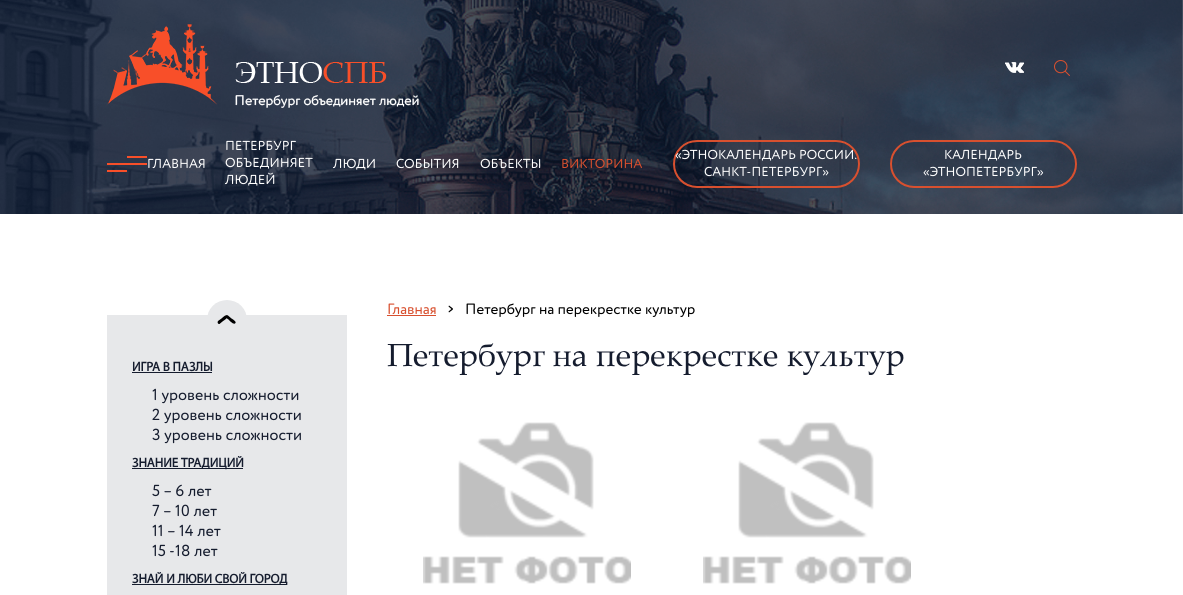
async function draw(canvas) {
	canvas.width = 1183;
	canvas.height = 595;
	const c = canvas.getContext('2d');
	c.miterLimit = 4;
	c.fontKerning = 'normal';
	async function loadImage(src) {
		const img = new Image();
		img.src = src;
		await img.decode();
		return img;
	}

	c.fillStyle = '#fff';
	c.fillRect(0, 0, 1183, 595);
	c.drawImage(await loadImage('img1.png'), 0, 0, 1183, 214);
	c.drawImage(await loadImage('img2.png'), 107, 24, 312, 84);
	c.drawImage(await loadImage('img3.png'), 1005, 62, 19, 11);
	c.drawImage(await loadImage('img4.png'), 1054, 60, 16, 16);
	c.drawImage(await loadImage('img5.png'), 107, 156, 40, 16);
	c.drawImage(await loadImage('img6.png'), 148, 158, 57, 11);
	c.drawImage(await loadImage('img7.png'), 226, 140, 70, 11);
	c.drawImage(await loadImage('img8.png'), 225, 157, 88, 12);
	c.drawImage(await loadImage('img9.png'), 225, 172, 50, 14);
	c.drawImage(await loadImage('img10.png'), 333, 158, 42, 12);
	c.drawImage(await loadImage('img11.png'), 396, 158, 63, 11);
	c.drawImage(await loadImage('img12.png'), 480, 158, 61, 11);
	c.drawImage(await loadImage('img13.png'), 562, 158, 80, 11);
	c.beginPath();
	c.roundRect(674, 141, 185, 46, 23);
	c.strokeStyle = '#d8502f';
	c.lineWidth = 2;
	c.stroke();
	c.drawImage(await loadImage('img14.png'), 675, 149, 121, 12);
	c.drawImage(await loadImage('img15.png'), 800, 149, 57, 11);
	c.drawImage(await loadImage('img16.png'), 704, 166, 125, 11);
	c.beginPath();
	c.roundRect(891, 141, 185, 46, 23);
	c.stroke();
	c.drawImage(await loadImage('img17.png'), 945, 149, 77, 12);
	c.drawImage(await loadImage('img18.png'), 923, 166, 121, 11);
	c.fillStyle = '#e7e8ea';
	c.fillRect(107, 315, 240, 280);
	c.beginPath();
	c.arc(227, 320, 20, 0, 2 * Math.PI);
	c.fill();
	c.fillStyle = '#000';
	c.beginPath();
	c.moveTo(218, 321);
	c.lineTo(221.5, 318.5);
	c.bezierCurveTo(222.5, 317.5, 225.5, 314, 227, 315.5);
	c.bezierCurveTo(229, 317.5, 223.5, 320.5, 222.5, 321.5);
	c.lineTo(219.5, 324);
	c.bezierCurveTo(218, 324.5, 217, 322.5, 218, 321);
	c.closePath();
	c.fill();
	c.beginPath();
	c.moveTo(228, 315.5);
	c.lineTo(231.5, 318.5);
	c.bezierCurveTo(232.5, 319, 236.5, 321.5, 235.5, 323);
	c.bezierCurveTo(234, 325.5, 229.5, 320.5, 228.5, 319.5);
	c.lineTo(225.5, 317.5);
	c.bezierCurveTo(225, 316, 227, 314.5, 228, 315.5);
	c.closePath();
	c.fill();
	c.font = 'bold 13px Myriad';
	c.fillStyle = '#151c2e';
	c.fillText('ИГРА В ПАЗЛЫ', 132, 371);
	c.fillRect(132, 372, 80, 1);
	c.drawImage(await loadImage('img19.png'), 152, 388, 147, 16);
	c.drawImage(await loadImage('img20.png'), 152, 408, 149, 16);
	c.drawImage(await loadImage('img21.png'), 152, 428, 149, 16);
	c.fillRect(132, 468, 111, 1);
	c.fillText('ЗНАНИЕ ТРАДИЦИЙ', 132, 467);
	c.drawImage(await loadImage('img22.png'), 152, 484, 60, 13);
	c.drawImage(await loadImage('img23.png'), 152, 504, 65, 13);
	c.drawImage(await loadImage('img24.png'), 152, 524, 69, 13);
	c.drawImage(await loadImage('img25.png'), 152, 544, 66, 13);
	c.fillRect(132, 584, 155, 1);
	c.fillText('ЗНАЙ И ЛЮБИ СВОЙ ГОРОД', 132, 583);
	c.drawImage(await loadImage('img26.png'), 388, 303, 48, 12);
	c.fillStyle = '#000';
	c.beginPath();
	c.moveTo(449, 305.5);
	c.lineTo(453, 308.5);
	c.lineTo(452, 309.5);
	c.lineTo(448.5, 306.5);
	c.closePath();
	c.fill();
	c.beginPath();
	c.moveTo(448.5, 311.5);
	c.lineTo(452, 308.5);
	c.lineTo(453, 309.5);
	c.lineTo(449, 312.5);
	c.closePath();
	c.fill();
	c.fillStyle = '#d8502f';
	c.fillRect(387, 315, 49, 1);
	c.drawImage(await loadImage('img27.png'), 466, 303, 229, 14);
	c.font = '32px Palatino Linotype';
	c.fillStyle = '#151c2e';
	c.fillText('Петербург на перекрестке культур', 387, 366);
	c.drawImage(await loadImage('img28.png'), 423, 422, 208, 162);
	c.drawImage(await loadImage('img28.png'), 703, 422, 208, 162);
}

draw(document.querySelector('canvas'));
